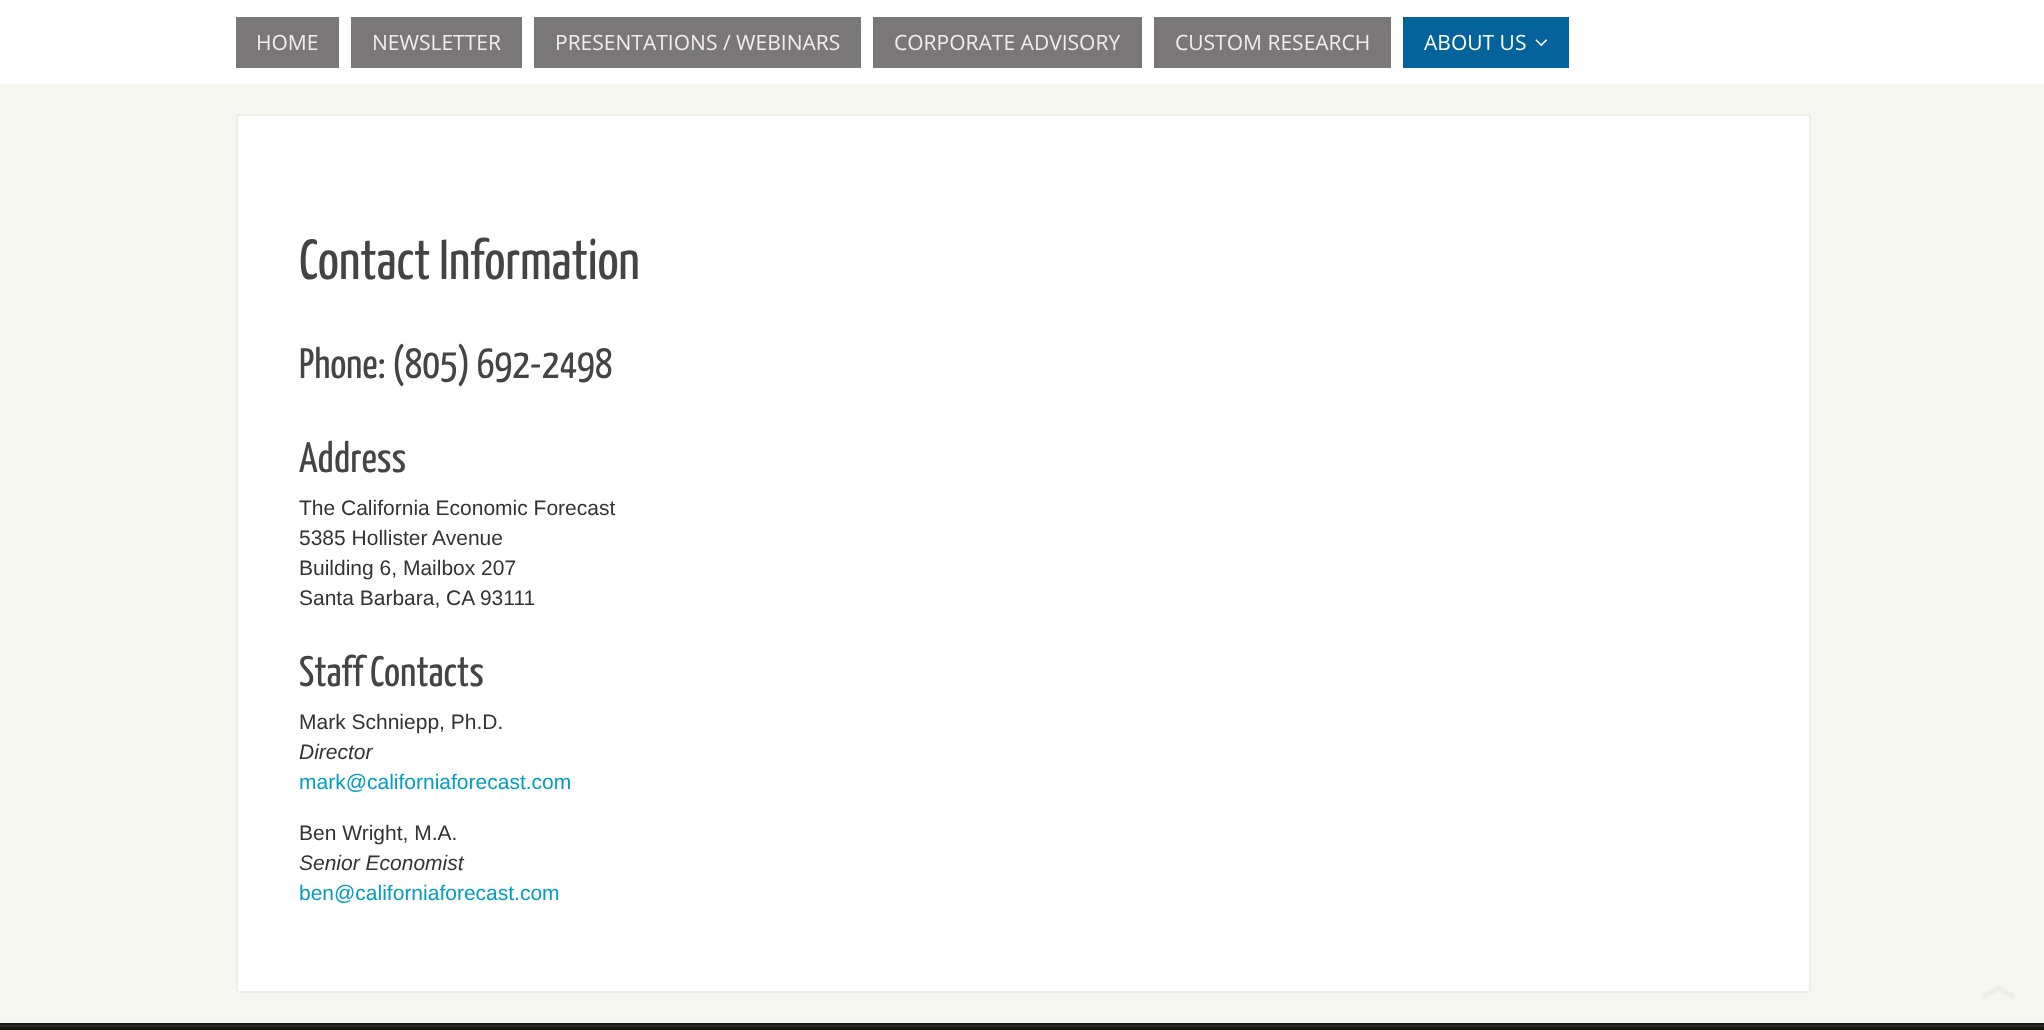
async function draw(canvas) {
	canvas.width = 2044;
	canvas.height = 1030;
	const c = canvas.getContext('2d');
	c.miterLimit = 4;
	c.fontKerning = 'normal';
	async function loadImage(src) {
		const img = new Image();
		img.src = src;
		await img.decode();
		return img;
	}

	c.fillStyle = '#f7f7f2';
	c.fillRect(0, 0, 2044, 1030);
	c.fillStyle = '#fff';
	c.fillRect(0, 0, 2044, 84);
	c.fillStyle = '#797777';
	c.fillRect(236, 17, 103, 51);
	c.font = '21px Open Sans';
	c.fillStyle = '#eee';
	c.fillText('HOME', 256, 50);
	c.fillStyle = '#797777';
	c.fillRect(351, 17, 171, 51);
	c.fillStyle = '#eee';
	c.fillText('NEWSLETTER', 372, 50);
	c.fillStyle = '#797777';
	c.fillRect(534, 17, 327, 51);
	c.fillStyle = '#eee';
	c.fillText('PRESENTATIONS / WEBINARS', 555, 50);
	c.fillStyle = '#797777';
	c.fillRect(873, 17, 269, 51);
	c.fillStyle = '#eee';
	c.fillText('CORPORATE ADVISORY', 894, 50);
	c.fillStyle = '#797777';
	c.fillRect(1154, 17, 237, 51);
	c.fillStyle = '#eee';
	c.fillText('CUSTOM RESEARCH', 1175, 50);
	c.fillStyle = '#04639a';
	c.fillRect(1403, 17, 166, 51);
	c.fillStyle = '#fff';
	c.fillText('ABOUT US', 1424, 50);
	c.drawImage(await loadImage('img1.png'), 1535, 39, 13, 8);
	c.beginPath();
	c.rect(237, 115, 1573, 877);
	c.fill();
	c.strokeStyle = '#eee';
	c.lineWidth = 2;
	c.stroke();
	c.font = '56.25px Yanone Kaffeesatz';
	c.fillStyle = '#444';
	c.fillText('Contact Information', 299, 279);
	c.font = '42.5px Yanone Kaffeesatz';
	c.fillText('Phone: (805) 692-2498', 299, 378);
	c.fillText('Address', 299, 472);
	c.font = '21px Liberation Sans';
	c.fillStyle = '#333';
	for (const [text, x, y] of [
		['The California Economic Forecast', 299, 515],
		['5385 Hollister Avenue', 299, 545],
		['Building 6, Mailbox 207', 299, 575],
		['Santa Barbara, CA 93111', 299, 605],
	]) {
		c.fillText(text, x, y);
	}
	c.font = '42.5px Yanone Kaffeesatz';
	c.fillStyle = '#444';
	c.fillText('Staff Contacts', 299, 686);
	c.font = '21px Liberation Sans';
	c.fillStyle = '#333';
	c.fillText('Mark Schniepp, Ph.D.', 299, 729);
	c.font = 'italic 21px Liberation Sans';
	c.fillText('Director', 299, 759);
	c.font = '21px Liberation Sans';
	c.fillStyle = '#029dc0';
	c.fillText('mark@californiaforecast.com', 299, 789);
	c.fillStyle = '#333';
	c.fillText('Ben Wright, M.A.', 299, 840);
	c.font = 'italic 21px Liberation Sans';
	c.fillText('Senior Economist', 299, 870);
	c.font = '21px Liberation Sans';
	c.fillStyle = '#029dc0';
	c.fillText('ben@californiaforecast.com', 299, 900);
	for (const [x, y, w, h, color] of [
		[0, 1023, 2044, 2, '#1a1917'],
		[0, 1027, 2044, 3, '#131211'],
		[0, 1025, 2044, 2, '#2b2a29'],
	]) {
		c.fillStyle = color;
		c.fillRect(x, y, w, h);
	}
	c.drawImage(await loadImage('img2.png'), 1982, 985, 32, 15);
}

draw(document.querySelector('canvas'));
